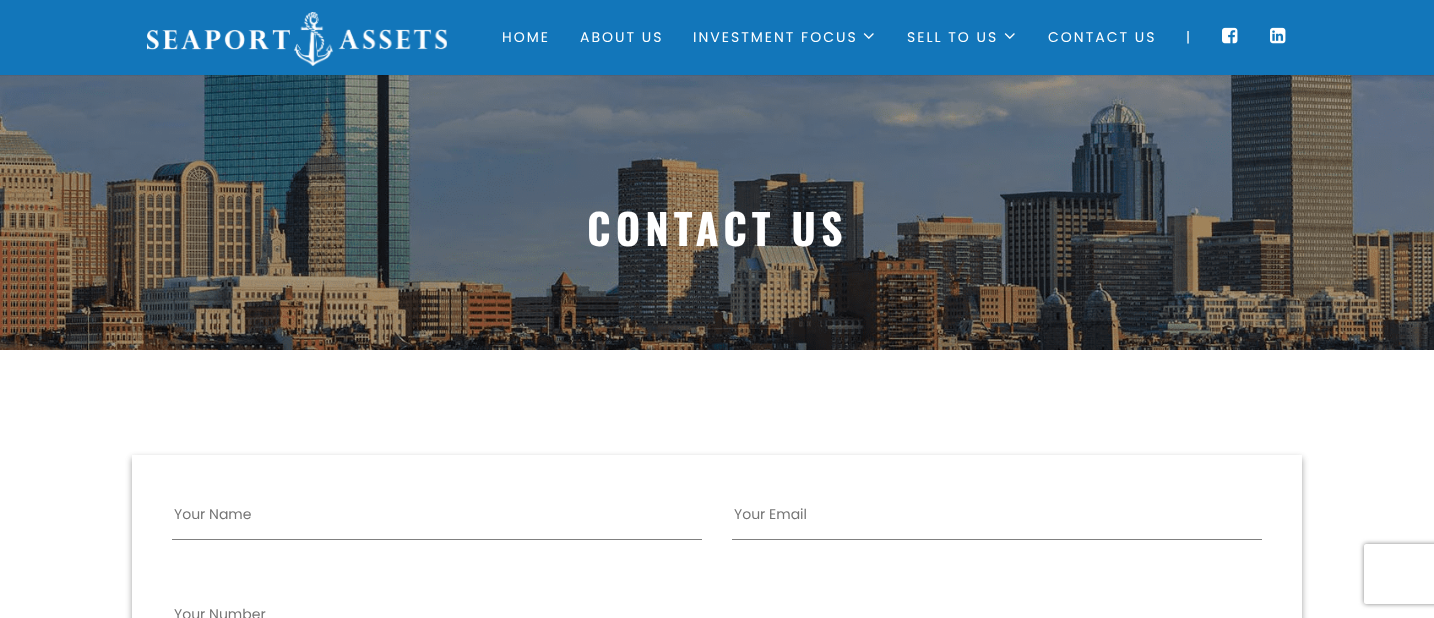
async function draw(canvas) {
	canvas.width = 1434;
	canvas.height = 618;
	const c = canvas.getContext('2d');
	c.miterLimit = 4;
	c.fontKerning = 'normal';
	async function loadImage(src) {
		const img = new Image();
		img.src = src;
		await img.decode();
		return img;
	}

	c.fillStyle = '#fff';
	c.fillRect(0, 0, 1434, 618);
	c.drawImage(await loadImage('img5.png'), 0, 75, 1434, 275);
	c.fillStyle = '#0000000d';
	c.fillRect(0, 75, 1434, 1);
	c.fillStyle = '#1276ba';
	c.fillRect(0, 0, 1434, 75);
	c.drawImage(await loadImage('img1.png'), 147, 12, 300, 54);
	c.letterSpacing = '2px';
	c.font = '14px Poppins';
	c.fillStyle = '#fff';
	for (const [text, x, y] of [
		['HOME', 502, 42],
		['ABOUT US', 580, 42],
		['INVESTMENT FOCUS', 693, 42],
	]) {
		c.fillText(text, x, y);
	}
	c.drawImage(await loadImage('img2.png'), 863, 33, 11, 6);
	c.fillText('SELL TO US', 907, 42);
	c.drawImage(await loadImage('img2.png'), 1004, 33, 11, 6);
	c.fillText('CONTACT US', 1048, 42);
	c.fillText('|', 1186, 42);
	c.drawImage(await loadImage('img3.png'), 1222, 27, 16, 17);
	c.drawImage(await loadImage('img4.png'), 1270, 27, 16, 17);
	c.letterSpacing = '5px';
	c.font = 'bold 42px Oswald';
	c.fillText('CONTACT US', 587, 246);
	c.save();
	c.beginPath();
	c.moveTo(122, 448);
	c.lineTo(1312, 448);
	c.lineTo(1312, 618);
	c.lineTo(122, 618);
	c.closePath();
	c.moveTo(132, 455);
	c.lineTo(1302, 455);
	c.lineTo(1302, 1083);
	c.lineTo(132, 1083);
	c.closePath();
	c.clip('evenodd');
	c.fillStyle = '#0000003b';
	c.filter = 'blur(3px)';
	c.beginPath();
	c.rect(132, 458, 1170, 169);
	c.fill();
	c.filter = 'none';
	c.fillStyle = '#00000029';
	c.filter = 'blur(3px)';
	c.beginPath();
	c.rect(132, 458, 1170, 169);
	c.fill();
	c.filter = 'none';
	c.restore();
	c.fillStyle = '#808080';
	c.fillRect(172, 539, 530, 1);
	c.letterSpacing = '0px';
	c.font = '14px Poppins';
	c.fillStyle = '#757575';
	c.fillText('Your Name', 174, 519);
	c.fillStyle = '#808080';
	c.fillRect(732, 539, 530, 1);
	c.fillStyle = '#757575';
	c.fillText('Your Email', 734, 519);
	c.fillText('Your Number', 174, 619);
	c.save();
	c.beginPath();
	c.moveTo(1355, 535);
	c.lineTo(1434, 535);
	c.lineTo(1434, 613);
	c.lineTo(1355, 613);
	c.closePath();
	c.moveTo(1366, 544);
	c.lineTo(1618, 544);
	c.bezierCurveTo(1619, 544, 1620, 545, 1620, 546);
	c.lineTo(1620, 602);
	c.bezierCurveTo(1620, 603, 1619, 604, 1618, 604);
	c.lineTo(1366, 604);
	c.bezierCurveTo(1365, 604, 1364, 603, 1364, 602);
	c.lineTo(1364, 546);
	c.bezierCurveTo(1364, 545, 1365, 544, 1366, 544);
	c.closePath();
	c.clip('evenodd');
	c.fillStyle = '#808080';
	c.filter = 'blur(2.5px)';
	c.beginPath();
	c.roundRect(1364, 544, 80, 60, 2);
	c.fill();
	c.filter = 'none';
	c.restore();
}

draw(document.querySelector('canvas'));
